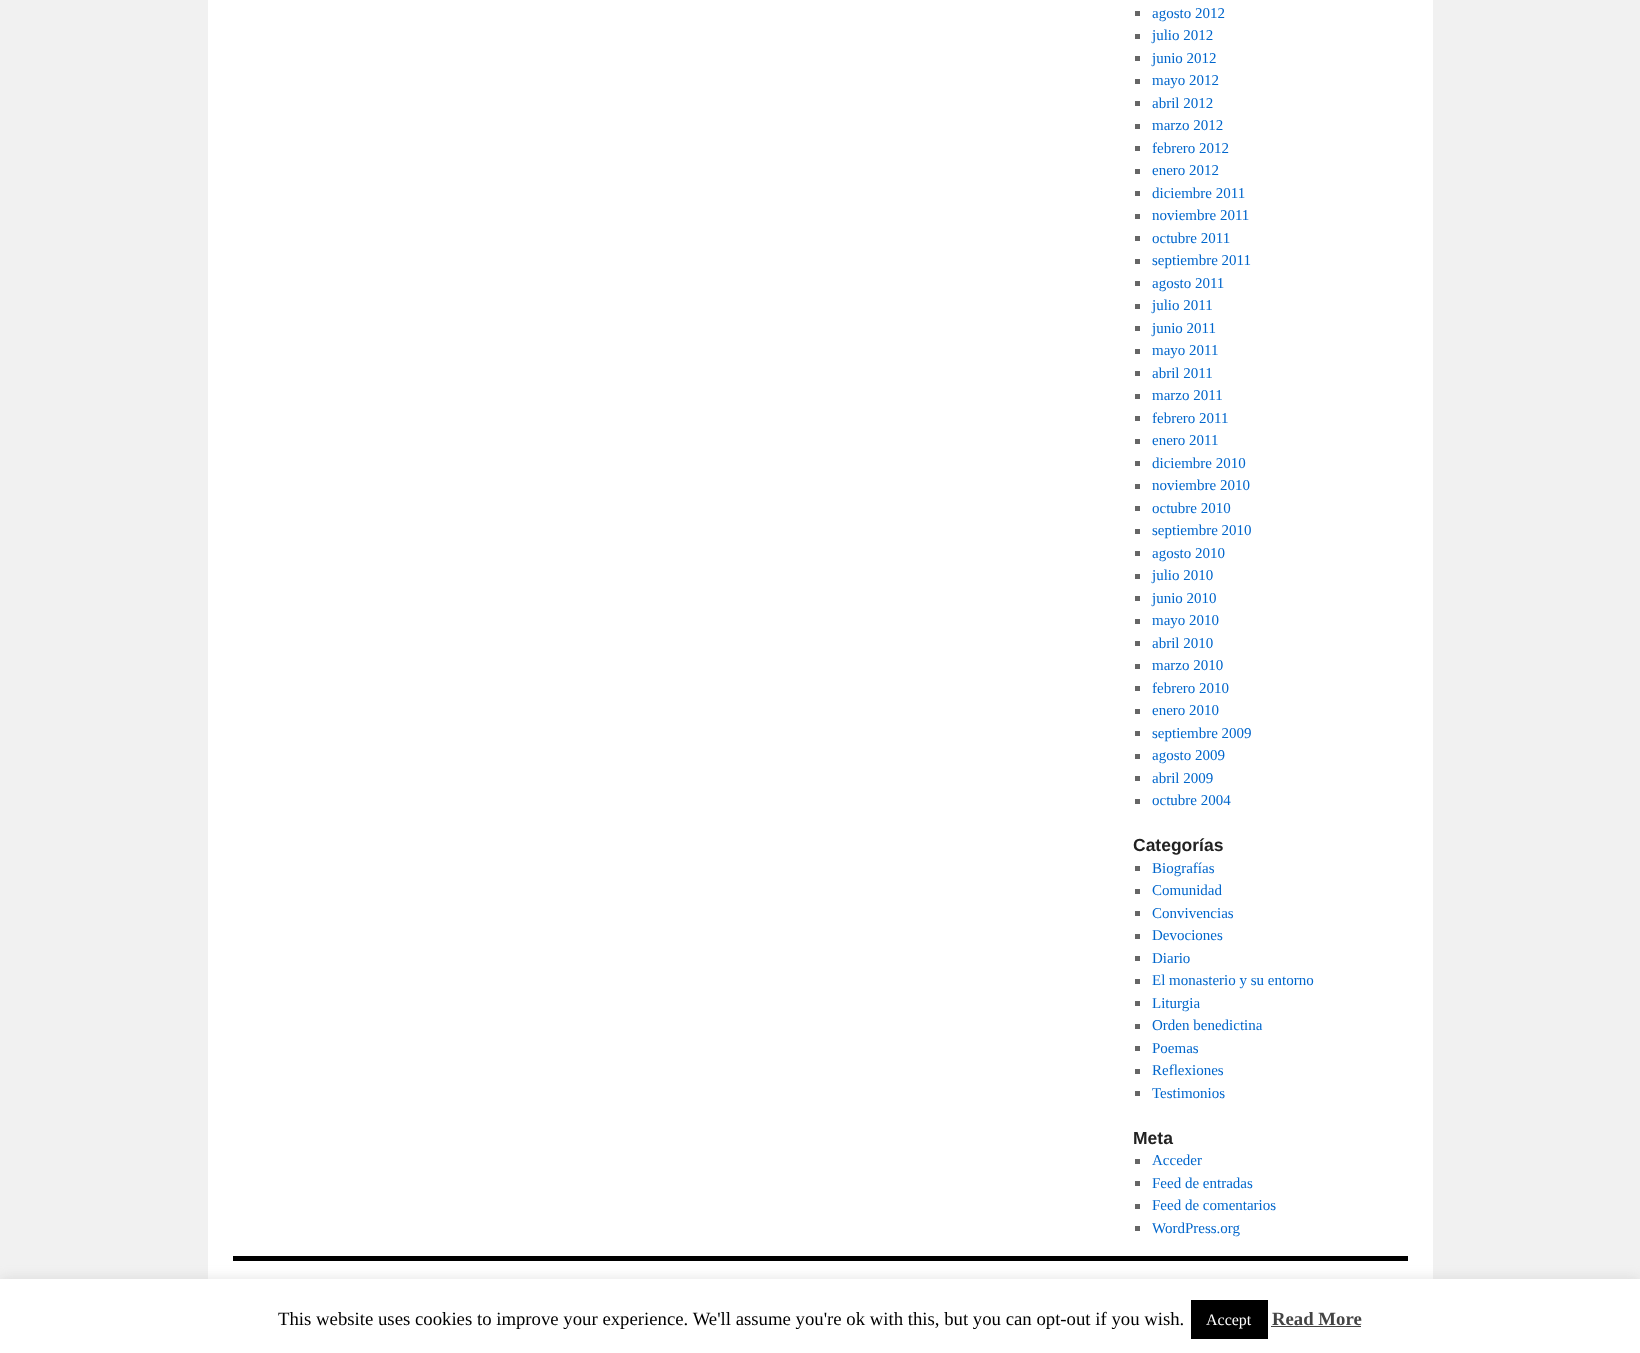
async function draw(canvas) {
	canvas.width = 1640;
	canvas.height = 1353;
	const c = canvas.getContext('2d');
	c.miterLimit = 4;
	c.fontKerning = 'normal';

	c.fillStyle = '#f1f1f1';
	c.fillRect(0, 0, 1640, 1353);
	c.fillStyle = '#fff';
	c.fillRect(208, 0, 1225, 1279);
	c.fillStyle = '#666';
	c.fillRect(1135, 11, 5, 5);
	c.font = '15px Liberation Serif';
	c.fillStyle = '#06c';
	c.fillText('agosto 2012', 1152, 18);
	c.fillStyle = '#666';
	c.fillRect(1135, 34, 5, 5);
	c.fillStyle = '#06c';
	c.fillText('julio 2012', 1152, 40);
	c.fillStyle = '#666';
	c.fillRect(1135, 56, 5, 5);
	c.fillStyle = '#06c';
	c.fillText('junio 2012', 1152, 63);
	c.fillStyle = '#666';
	c.fillRect(1135, 79, 5, 5);
	c.fillStyle = '#06c';
	c.fillText('mayo 2012', 1152, 85);
	c.fillStyle = '#666';
	c.fillRect(1135, 101, 5, 5);
	c.fillStyle = '#06c';
	c.fillText('abril 2012', 1152, 108);
	c.fillStyle = '#666';
	c.fillRect(1135, 124, 5, 5);
	c.fillStyle = '#06c';
	c.fillText('marzo 2012', 1152, 130);
	c.fillStyle = '#666';
	c.fillRect(1135, 146, 5, 5);
	c.fillStyle = '#06c';
	c.fillText('febrero 2012', 1152, 153);
	c.fillStyle = '#666';
	c.fillRect(1135, 169, 5, 5);
	c.fillStyle = '#06c';
	c.fillText('enero 2012', 1152, 175);
	c.fillStyle = '#666';
	c.fillRect(1135, 191, 5, 5);
	c.fillStyle = '#06c';
	c.fillText('diciembre 2011', 1152, 198);
	c.fillStyle = '#666';
	c.fillRect(1135, 214, 5, 5);
	c.fillStyle = '#06c';
	c.fillText('noviembre 2011', 1152, 220);
	c.fillStyle = '#666';
	c.fillRect(1135, 236, 5, 5);
	c.fillStyle = '#06c';
	c.fillText('octubre 2011', 1152, 243);
	c.fillStyle = '#666';
	c.fillRect(1135, 259, 5, 5);
	c.fillStyle = '#06c';
	c.fillText('septiembre 2011', 1152, 265);
	c.fillStyle = '#666';
	c.fillRect(1135, 281, 5, 5);
	c.fillStyle = '#06c';
	c.fillText('agosto 2011', 1152, 288);
	c.fillStyle = '#666';
	c.fillRect(1135, 304, 5, 5);
	c.fillStyle = '#06c';
	c.fillText('julio 2011', 1152, 310);
	c.fillStyle = '#666';
	c.fillRect(1135, 326, 5, 5);
	c.fillStyle = '#06c';
	c.fillText('junio 2011', 1152, 333);
	c.fillStyle = '#666';
	c.fillRect(1135, 349, 5, 5);
	c.fillStyle = '#06c';
	c.fillText('mayo 2011', 1152, 355);
	c.fillStyle = '#666';
	c.fillRect(1135, 371, 5, 5);
	c.fillStyle = '#06c';
	c.fillText('abril 2011', 1152, 378);
	c.fillStyle = '#666';
	c.fillRect(1135, 394, 5, 5);
	c.fillStyle = '#06c';
	c.fillText('marzo 2011', 1152, 400);
	c.fillStyle = '#666';
	c.fillRect(1135, 416, 5, 5);
	c.fillStyle = '#06c';
	c.fillText('febrero 2011', 1152, 423);
	c.fillStyle = '#666';
	c.fillRect(1135, 439, 5, 5);
	c.fillStyle = '#06c';
	c.fillText('enero 2011', 1152, 445);
	c.fillStyle = '#666';
	c.fillRect(1135, 461, 5, 5);
	c.fillStyle = '#06c';
	c.fillText('diciembre 2010', 1152, 468);
	c.fillStyle = '#666';
	c.fillRect(1135, 484, 5, 5);
	c.fillStyle = '#06c';
	c.fillText('noviembre 2010', 1152, 490);
	c.fillStyle = '#666';
	c.fillRect(1135, 506, 5, 5);
	c.fillStyle = '#06c';
	c.fillText('octubre 2010', 1152, 513);
	c.fillStyle = '#666';
	c.fillRect(1135, 529, 5, 5);
	c.fillStyle = '#06c';
	c.fillText('septiembre 2010', 1152, 535);
	c.fillStyle = '#666';
	c.fillRect(1135, 551, 5, 5);
	c.fillStyle = '#06c';
	c.fillText('agosto 2010', 1152, 558);
	c.fillStyle = '#666';
	c.fillRect(1135, 574, 5, 5);
	c.fillStyle = '#06c';
	c.fillText('julio 2010', 1152, 580);
	c.fillStyle = '#666';
	c.fillRect(1135, 596, 5, 5);
	c.fillStyle = '#06c';
	c.fillText('junio 2010', 1152, 603);
	c.fillStyle = '#666';
	c.fillRect(1135, 619, 5, 5);
	c.fillStyle = '#06c';
	c.fillText('mayo 2010', 1152, 625);
	c.fillStyle = '#666';
	c.fillRect(1135, 641, 5, 5);
	c.fillStyle = '#06c';
	c.fillText('abril 2010', 1152, 648);
	c.fillStyle = '#666';
	c.fillRect(1135, 664, 5, 5);
	c.fillStyle = '#06c';
	c.fillText('marzo 2010', 1152, 670);
	c.fillStyle = '#666';
	c.fillRect(1135, 686, 5, 5);
	c.fillStyle = '#06c';
	c.fillText('febrero 2010', 1152, 693);
	c.fillStyle = '#666';
	c.fillRect(1135, 709, 5, 5);
	c.fillStyle = '#06c';
	c.fillText('enero 2010', 1152, 715);
	c.fillStyle = '#666';
	c.fillRect(1135, 731, 5, 5);
	c.fillStyle = '#06c';
	c.fillText('septiembre 2009', 1152, 738);
	c.fillStyle = '#666';
	c.fillRect(1135, 754, 5, 5);
	c.fillStyle = '#06c';
	c.fillText('agosto 2009', 1152, 760);
	c.fillStyle = '#666';
	c.fillRect(1135, 776, 5, 5);
	c.fillStyle = '#06c';
	c.fillText('abril 2009', 1152, 783);
	c.fillStyle = '#666';
	c.fillRect(1135, 799, 5, 5);
	c.fillStyle = '#06c';
	c.fillText('octubre 2004', 1152, 805);
	c.font = 'bold 17.5px Liberation Sans';
	c.fillStyle = '#222';
	c.fillText('Categorías', 1133, 851);
	c.fillStyle = '#666';
	c.fillRect(1135, 866, 5, 5);
	c.font = '15px Liberation Serif';
	c.fillStyle = '#06c';
	c.fillText('Biografías', 1152, 873);
	c.fillStyle = '#666';
	c.fillRect(1135, 889, 5, 5);
	c.fillStyle = '#06c';
	c.fillText('Comunidad', 1152, 895);
	c.fillStyle = '#666';
	c.fillRect(1135, 911, 5, 5);
	c.fillStyle = '#06c';
	c.fillText('Convivencias', 1152, 918);
	c.fillStyle = '#666';
	c.fillRect(1135, 934, 5, 5);
	c.fillStyle = '#06c';
	c.fillText('Devociones', 1152, 940);
	c.fillStyle = '#666';
	c.fillRect(1135, 956, 5, 5);
	c.fillStyle = '#06c';
	c.fillText('Diario', 1152, 963);
	c.fillStyle = '#666';
	c.fillRect(1135, 979, 5, 5);
	c.fillStyle = '#06c';
	c.fillText('El monasterio y su entorno', 1152, 985);
	c.fillStyle = '#666';
	c.fillRect(1135, 1001, 5, 5);
	c.fillStyle = '#06c';
	c.fillText('Liturgia', 1152, 1008);
	c.fillStyle = '#666';
	c.fillRect(1135, 1024, 5, 5);
	c.fillStyle = '#06c';
	c.fillText('Orden benedictina', 1152, 1030);
	c.fillStyle = '#666';
	c.fillRect(1135, 1046, 5, 5);
	c.fillStyle = '#06c';
	c.fillText('Poemas', 1152, 1053);
	c.fillStyle = '#666';
	c.fillRect(1135, 1069, 5, 5);
	c.fillStyle = '#06c';
	c.fillText('Reflexiones', 1152, 1075);
	c.fillStyle = '#666';
	c.fillRect(1135, 1091, 5, 5);
	c.fillStyle = '#06c';
	c.fillText('Testimonios', 1152, 1098);
	c.font = 'bold 17.5px Liberation Sans';
	c.fillStyle = '#222';
	c.fillText('Meta', 1133, 1144);
	c.fillStyle = '#666';
	c.fillRect(1135, 1159, 5, 5);
	c.font = '15px Liberation Serif';
	c.fillStyle = '#06c';
	c.fillText('Acceder', 1152, 1165);
	c.fillStyle = '#666';
	c.fillRect(1135, 1181, 5, 5);
	c.fillStyle = '#06c';
	c.fillText('Feed de entradas', 1152, 1188);
	c.fillStyle = '#666';
	c.fillRect(1135, 1204, 5, 5);
	c.fillStyle = '#06c';
	c.fillText('Feed de comentarios', 1152, 1210);
	c.fillStyle = '#666';
	c.fillRect(1135, 1226, 5, 5);
	c.fillStyle = '#06c';
	c.fillText('WordPress.org', 1152, 1233);
	c.fillStyle = '#000';
	c.fillRect(233, 1256, 1175, 5);
	c.fillStyle = '#acabab4d';
	c.filter = 'blur(6px)';
	c.beginPath();
	c.rect(0, 1278, 1640, 75);
	c.fill();
	c.filter = 'none';
	c.fillStyle = '#fff';
	c.fillRect(0, 1279, 1640, 74);
	c.font = '18.75px Liberation Serif';
	c.fillStyle = '#000';
	c.fillText('This website uses cookies to improve your experience. We\'ll assume you\'re ok with this, but you can opt-out if you wish.', 278, 1325);
	c.fillRect(1191, 1300, 77, 39);
	c.font = '16px Liberation Serif';
	c.fillStyle = '#fff';
	c.fillText('Accept', 1206, 1325);
	c.font = 'bold 18.75px Liberation Serif';
	c.fillStyle = '#444';
	c.fillText('Read More', 1272, 1325);
	c.fillRect(1271, 1326, 90, 1);
}

draw(document.querySelector('canvas'));
